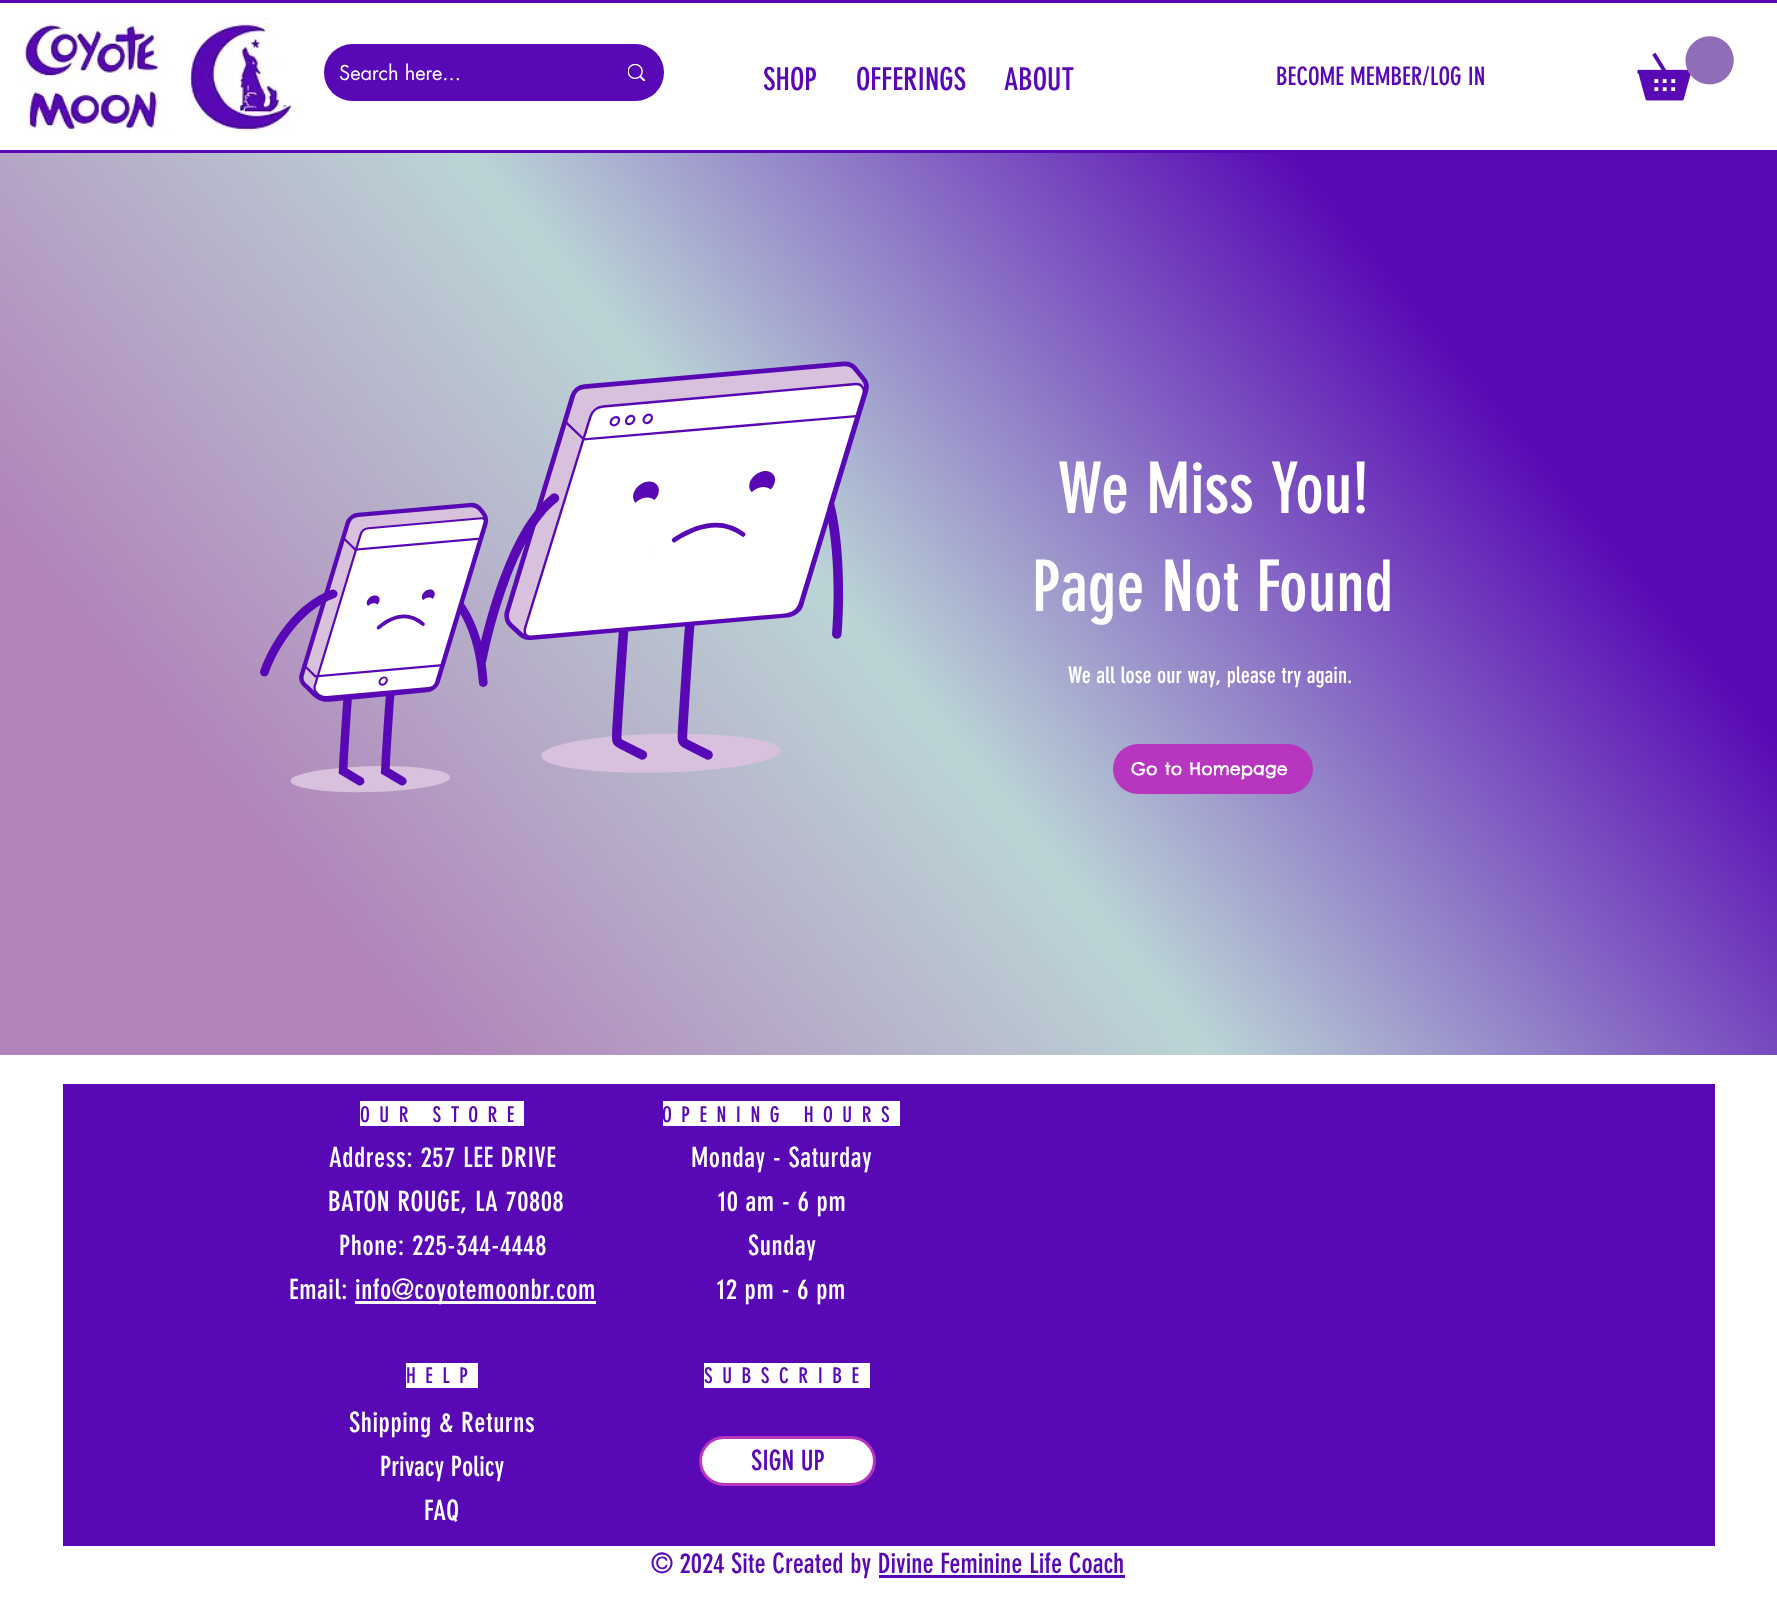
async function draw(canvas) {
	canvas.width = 1777;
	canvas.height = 1609;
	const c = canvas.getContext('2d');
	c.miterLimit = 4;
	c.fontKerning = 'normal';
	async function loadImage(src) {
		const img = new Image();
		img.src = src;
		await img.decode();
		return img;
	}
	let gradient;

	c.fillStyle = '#fff';
	c.fillRect(0, 0, 1777, 1609);
	c.fillStyle = '#5808b4';
	c.fillRect(0, 0, 1777, 3);
	c.fillRect(0, 150, 1777, 3);
	c.drawImage(await loadImage('img1.png'), 18, 17, 281, 118);
	c.beginPath();
	c.roundRect(324, 44, 340, 57, 28.5);
	c.fill();
	c.font = '20px futura';
	c.fillStyle = '#fff';
	c.fillText('Search here...', 339, 80);
	c.drawImage(await loadImage('img2.png'), 628, 64, 17, 17);
	c.font = '31px "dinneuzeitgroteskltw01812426"';
	c.fillStyle = '#5808b4';
	for (const [text, x, y] of [
		['SHOP', 763, 90],
		['OFFERINGS', 856, 90],
		['ABOUT', 1004, 90],
	]) {
		c.fillText(text, x, y);
	}
	c.font = '25px "dinneuzeitgroteskltw01812426"';
	c.fillText('BECOME MEMBER/LOG IN', 1276, 85);
	c.drawImage(await loadImage('img3.png'), 1637, 36, 97, 65);
	gradient = c.createLinearGradient(138, 1223, 1639, -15);
	gradient.addColorStop(0.17, '#b183ba');
	gradient.addColorStop(0.48, '#bbd5d6');
	gradient.addColorStop(0.81, '#5808b4');
	c.fillStyle = gradient;
	c.fillRect(0, 153, 1777, 902);
	c.drawImage(await loadImage('img4.png'), 260, 361, 609, 432);
	c.font = '70px "dinneuzeitgroteskltw01812426"';
	c.fillStyle = '#fff';
	c.fillText('We Miss You!', 1058, 513);
	c.fillText('Page Not Found', 1032, 611);
	c.font = '22.5px "dinneuzeitgroteskltw01812426"';
	c.fillText('We all lose our way, please try again.', 1068, 683);
	c.fillStyle = '#b735bf';
	c.beginPath();
	c.roundRect(1113, 744, 200, 50, 25);
	c.fill();
	c.font = '17.5px Chelsea Market';
	c.fillStyle = '#fff';
	c.fillText('Go to Homepage', 1131, 775);
	c.fillStyle = '#5808b4';
	c.fillRect(63, 1084, 1652, 462);
	c.fillStyle = '#fff';
	c.fillRect(360, 1101, 164, 25);
	c.letterSpacing = '9.5px';
	c.font = '21.25px "dinneuzeitgroteskltw01812426"';
	c.fillStyle = '#5808b4';
	c.fillText('OUR STORE', 360, 1122);
	c.fillStyle = '#fff';
	c.fillRect(663, 1101, 237, 25);
	c.fillStyle = '#5808b4';
	c.fillText('OPENING HOURS', 662, 1122);
	c.letterSpacing = '0.55px';
	c.font = '27.5px "dinneuzeitgroteskltw01812426"';
	c.fillStyle = '#fff';
	for (const [text, x, y] of [
		['Address: 257 LEE DRIVE', 329, 1167],
		['BATON ROUGE, LA 70808', 328, 1211],
		['Phone: 225-344-4448', 339, 1255],
		['Email:', 289, 1299],
	]) {
		c.fillText(text, x, y);
	}
	c.fillRect(355, 1301, 241, 3);
	for (const [text, x, y] of [
		['info@coyotemoonbr.com', 355, 1299],
		['Monday - Saturday', 691, 1167],
		['10 am - 6 pm', 718, 1211],
		['Sunday', 748, 1255],
		['12 pm - 6 pm', 717, 1299],
	]) {
		c.fillText(text, x, y);
	}
	c.fillRect(406, 1363, 72, 25);
	c.letterSpacing = '9.5px';
	c.font = '21.25px "dinneuzeitgroteskltw01812426"';
	c.fillStyle = '#5808b4';
	c.fillText('HELP', 406, 1383);
	c.fillStyle = '#fff';
	c.fillRect(704, 1363, 166, 25);
	c.fillStyle = '#5808b4';
	c.fillText('SUBSCRIBE', 704, 1383);
	c.letterSpacing = '0.55px';
	c.font = '27.5px "dinneuzeitgroteskltw01812426"';
	c.fillStyle = '#fff';
	c.fillText('Shipping & Returns', 349, 1432);
	c.letterSpacing = '0px';
	c.fillText('Privacy Policy', 380, 1476);
	c.letterSpacing = '0.55px';
	c.fillText('FAQ', 424, 1520);
	c.beginPath();
	c.roundRect(700.5, 1437.5, 174, 47, 23.5);
	c.fill();
	c.strokeStyle = '#b735bf';
	c.lineWidth = 3;
	c.stroke();
	c.letterSpacing = '0px';
	c.fillStyle = '#5808b4';
	c.fillText('SIGN UP', 751, 1470);
	c.fillText('© 2024 Site Created by Divine Feminine Life Coach', 651, 1573);
	c.fillRect(879, 1575, 246, 3);
}

draw(document.querySelector('canvas'));
